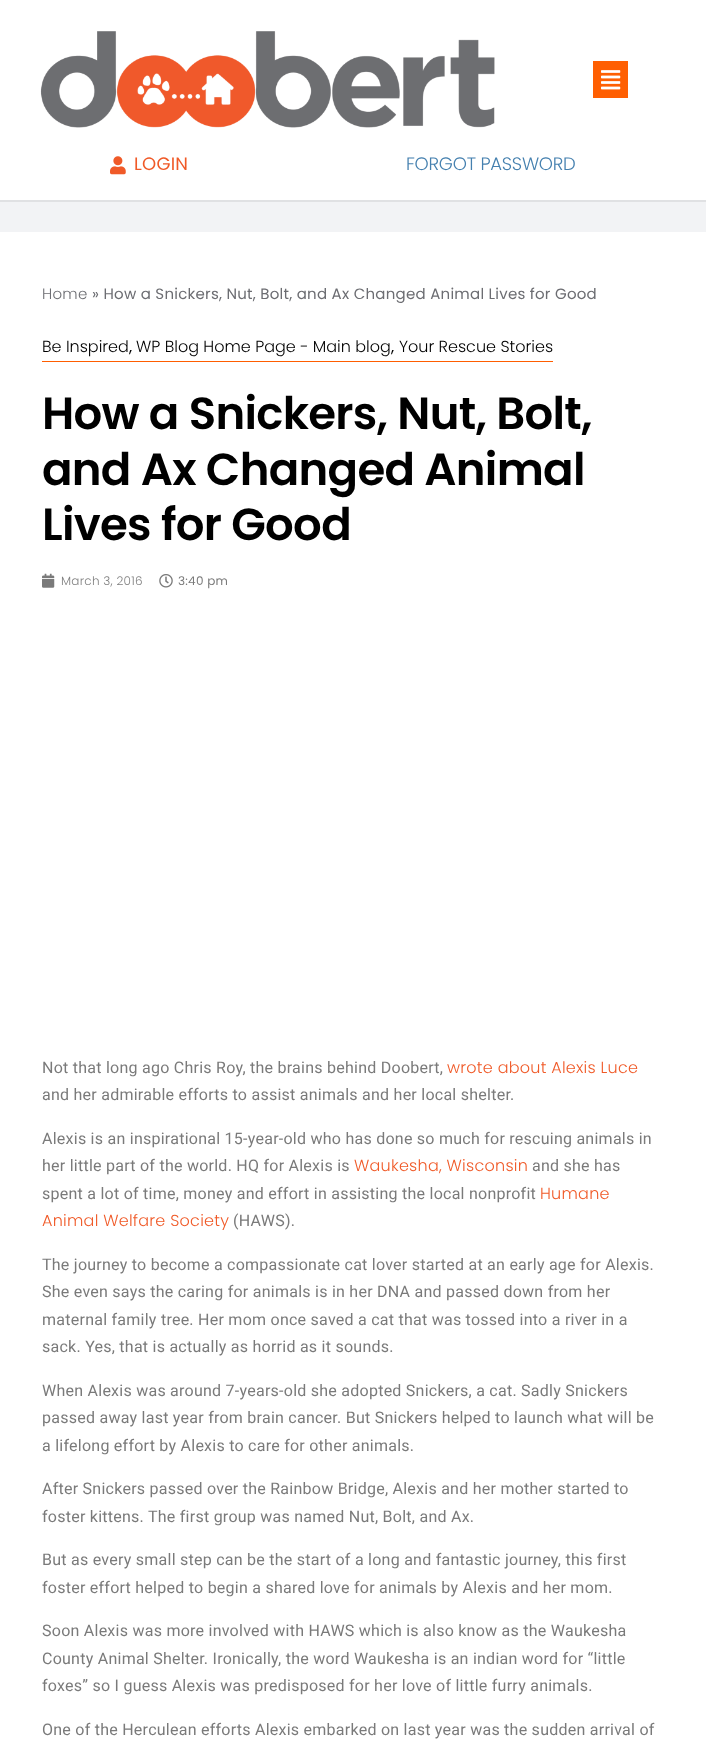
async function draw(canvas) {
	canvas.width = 706;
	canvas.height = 1744;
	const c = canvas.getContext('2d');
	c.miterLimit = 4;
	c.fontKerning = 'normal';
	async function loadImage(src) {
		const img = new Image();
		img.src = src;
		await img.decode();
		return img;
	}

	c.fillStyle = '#f2f3f5';
	c.fillRect(0, 0, 706, 1744);
	c.fillStyle = '#00000012';
	c.filter = 'blur(0.5px)';
	c.beginPath();
	c.rect(0, 2, 706, 200);
	c.fill();
	c.filter = 'none';
	c.fillStyle = '#fff';
	c.fillRect(0, 0, 706, 200);
	c.drawImage(await loadImage('img1.png'), 40, 31, 455, 97);
	c.fillStyle = '#ff5f02';
	c.fillRect(593, 61, 35, 37);
	c.drawImage(await loadImage('img2.png'), 601, 70, 20, 20);
	c.drawImage(await loadImage('img3.png'), 110, 156, 16, 19);
	c.letterSpacing = '0.25px';
	c.font = '18px Poppins';
	c.fillStyle = '#f05a28';
	c.fillText('LOGIN', 134, 170);
	c.letterSpacing = '-0.25px';
	c.font = '300 18px Poppins';
	c.fillStyle = '#4580af';
	c.fillText('FORGOT PASSWORD', 406, 170);
	c.fillStyle = '#fff';
	c.fillRect(0, 232, 706, 1512);
	c.letterSpacing = '0.25px';
	c.font = '300 15px Poppins';
	c.fillStyle = '#6c6d72';
	c.fillText('Home', 42, 299);
	c.font = '15px Poppins';
	c.fillText('» How a Snickers, Nut, Bolt, and Ax Changed Animal Lives for Good', 92, 299);
	c.fillStyle = '#ff5d00';
	c.fillRect(42, 361, 511, 1);
	c.letterSpacing = '0px';
	c.font = '300 16px Poppins';
	c.fillStyle = '#000';
	c.fillText('Be Inspired', 42, 352);
	c.font = '16px Poppins';
	c.fillText(',', 129, 352);
	c.font = '300 16px Poppins';
	c.fillText('WP Blog Home Page - Main blog', 136, 352);
	c.font = '16px Poppins';
	c.fillText(',', 391, 352);
	c.font = '300 16px Poppins';
	c.fillText('Your Rescue Stories', 399, 352);
	c.letterSpacing = '-0.7px';
	c.font = '600 45px Poppins';
	for (const [text, x, y] of [
		['How a Snickers, Nut, Bolt,', 42, 429],
		['and Ax Changed Animal', 42, 485],
		['Lives for Good', 42, 540],
	]) {
		c.fillText(text, x, y);
	}
	c.drawImage(await loadImage('img4.png'), 42, 573, 13, 15);
	c.letterSpacing = '0.25px';
	c.font = '300 12px Poppins';
	c.fillStyle = '#808080';
	c.fillText('March 3, 2016', 61, 585);
	c.drawImage(await loadImage('img5.png'), 159, 574, 14, 14);
	c.font = '12px Poppins';
	c.fillStyle = '#7a7a7a';
	c.fillText('3:40 pm', 178, 585);
	c.font = '16px Roboto';
	c.fillText('Not that long ago Chris Roy, the brains behind Doobert,', 42, 1073);
	c.font = '300 16px Poppins';
	c.fillStyle = '#f05a28';
	c.fillText('wrote about Alexis Luce', 447, 1073);
	c.font = '16px Roboto';
	c.fillStyle = '#7a7a7a';
	for (const [text, x, y] of [
		['and her admirable efforts to assist animals and her local shelter.', 42, 1100],
		['Alexis is an inspirational 15-year-old who has done so much for rescuing animals in', 42, 1144],
		['her little part of the world. HQ for Alexis is', 42, 1171],
	]) {
		c.fillText(text, x, y);
	}
	c.font = '300 16px Poppins';
	c.fillStyle = '#f05a28';
	c.fillText('Waukesha, Wisconsin', 354, 1171);
	c.font = '16px Roboto';
	c.fillStyle = '#7a7a7a';
	c.fillText('and she has', 532, 1171);
	c.fillText('spent a lot of time, money and effort in assisting the local nonprofit', 42, 1199);
	c.font = '300 16px Poppins';
	c.fillStyle = '#f05a28';
	c.fillText('Humane', 540, 1199);
	c.fillText('Animal Welfare Society', 42, 1226);
	c.font = '16px Roboto';
	c.fillStyle = '#7a7a7a';
	for (const [text, x, y] of [
		['(HAWS).', 233, 1226],
		['The journey to become a compassionate cat lover started at an early age for Alexis.', 42, 1270],
		['She even says the caring for animals is in her DNA and passed down from her', 42, 1297],
		['maternal family tree. Her mom once saved a cat that was tossed into a river in a', 42, 1325],
		['sack. Yes, that is actually as horrid as it sounds.', 42, 1352],
		['When Alexis was around 7-years-old she adopted Snickers, a cat. Sadly Snickers', 42, 1396],
		['passed away last year from brain cancer. But Snickers helped to launch what will be', 42, 1423],
		['a lifelong effort by Alexis to care for other animals.', 42, 1451],
		['After Snickers passed over the Rainbow Bridge, Alexis and her mother started to', 42, 1494],
		['foster kittens. The first group was named Nut, Bolt, and Ax.', 42, 1522],
		['But as every small step can be the start of a long and fantastic journey, this first', 42, 1565],
		['foster effort helped to begin a shared love for animals by Alexis and her mom.', 42, 1593],
		['Soon Alexis was more involved with HAWS which is also know as the Waukesha', 42, 1636],
		['County Animal Shelter. Ironically, the word Waukesha is an indian word for “little', 42, 1664],
		['foxes” so I guess Alexis was predisposed for her love of little furry animals.', 42, 1691],
		['One of the Herculean efforts Alexis embarked on last year was the sudden arrival of', 42, 1735],
	]) {
		c.fillText(text, x, y);
	}
}

draw(document.querySelector('canvas'));
